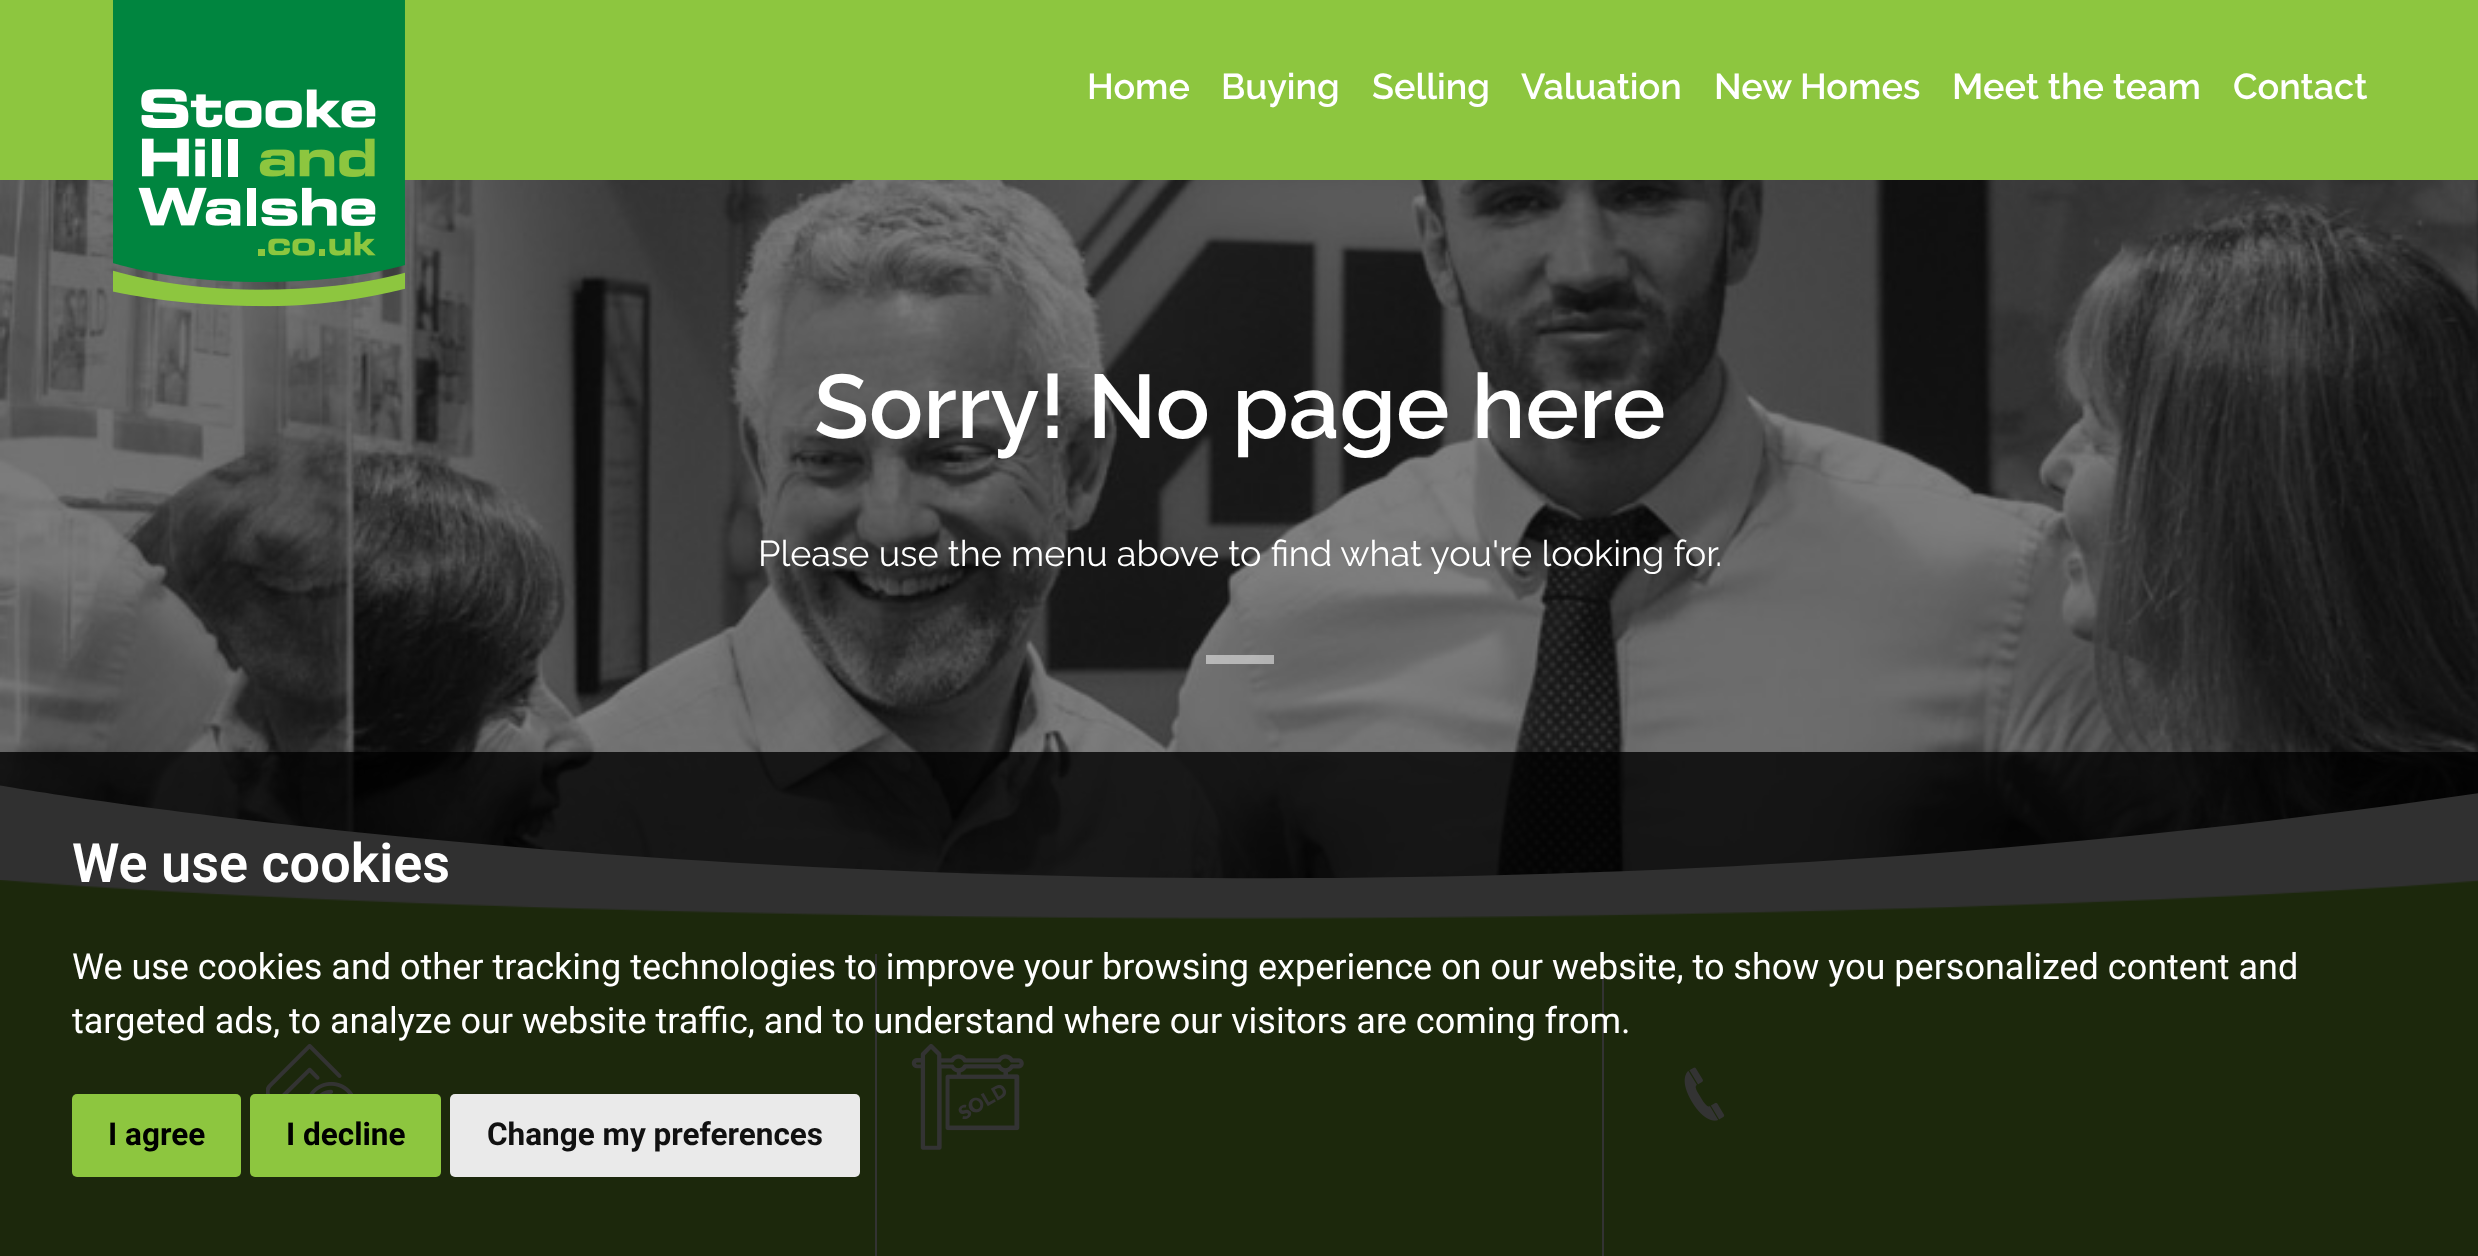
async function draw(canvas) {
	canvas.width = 2478;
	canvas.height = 1256;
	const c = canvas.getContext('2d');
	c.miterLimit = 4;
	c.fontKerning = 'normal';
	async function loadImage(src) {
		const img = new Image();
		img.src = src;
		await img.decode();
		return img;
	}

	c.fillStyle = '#eee';
	c.fillRect(0, 0, 2478, 1256);
	c.fillStyle = '#8dc63f';
	c.fillRect(0, 0, 2478, 180);
	c.drawImage(await loadImage('img2.png'), 0, 180, 2478, 699);
	c.fillStyle = '#00000080';
	c.fillRect(0, 180, 2478, 699);
	c.drawImage(await loadImage('img1.png'), 113, 0, 292, 307);
	c.font = '600 36px Raleway';
	c.fillStyle = '#fff';
	for (const [text, x, y] of [
		['Home', 1087, 99],
		['Buying', 1221, 99],
		['Selling', 1372, 99],
		['Valuation', 1521, 99],
		['New Homes', 1714, 99],
		['Meet the team', 1952, 99],
		['Contact', 2233, 99],
	]) {
		c.fillText(text, x, y);
	}
	c.font = '600 90px Raleway';
	c.fillText('Sorry! No page here', 814, 438);
	c.font = '36px Raleway';
	c.fillText('Please use the menu above to find what you\'re looking for.', 758, 566);
	c.fillStyle = '#ffffff80';
	c.fillRect(1206, 655, 68, 9);
	c.save();
	c.beginPath();
	c.rect(0, 745, 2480, 135);
	c.clip();
	c.fillStyle = '#eee';
	c.beginPath();
	c.moveTo(-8, 891);
	c.lineTo(-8, 784);
	c.bezierCurveTo(-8, 784, 1169, 996, 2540, 784);
	c.lineTo(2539, 893);
	c.closePath();
	c.fill();
	c.restore();
	c.drawImage(await loadImage('img3.png'), 0, 880, 2478, 74);
	c.fillStyle = '#8dc63f';
	c.fillRect(0, 954, 2478, 302);
	c.drawImage(await loadImage('img4.png'), 266, 1044, 88, 50);
	c.fillStyle = '#fff';
	c.fillRect(1602, 954, 2, 302);
	c.fillRect(875, 954, 2, 302);
	c.drawImage(await loadImage('img5.png'), 911, 1044, 113, 106);
	c.drawImage(await loadImage('img6.png'), 1684, 1067, 41, 54);
	c.fillStyle = '#000000cc';
	c.fillRect(0, 752, 2478, 504);
	c.font = '600 54px Roboto';
	c.fillStyle = '#fff';
	c.fillText('We use cookies', 72, 882);
	c.font = '36px Roboto';
	c.fillText('We use cookies and other tracking technologies to improve your browsing experience on our website, to show you personalized content and', 72, 979);
	c.fillText('targeted ads, to analyze our website traffic, and to understand where our visitors are coming from.', 72, 1033);
	c.fillStyle = '#8dc63f';
	c.beginPath();
	c.roundRect(72, 1094, 169, 83, 5);
	c.fill();
	c.font = 'bold 31.5px Roboto';
	c.fillStyle = '#000';
	c.fillText('I agree', 108, 1145);
	c.fillStyle = '#8dc63f';
	c.beginPath();
	c.roundRect(250, 1094, 191, 83, 5);
	c.fill();
	c.fillStyle = '#000';
	c.fillText('I decline', 286, 1145);
	c.fillStyle = '#eaeaea';
	c.beginPath();
	c.roundRect(450, 1094, 410, 83, 5);
	c.fill();
	c.fillStyle = '#111';
	c.fillText('Change my preferences', 487, 1145);
}

draw(document.querySelector('canvas'));
